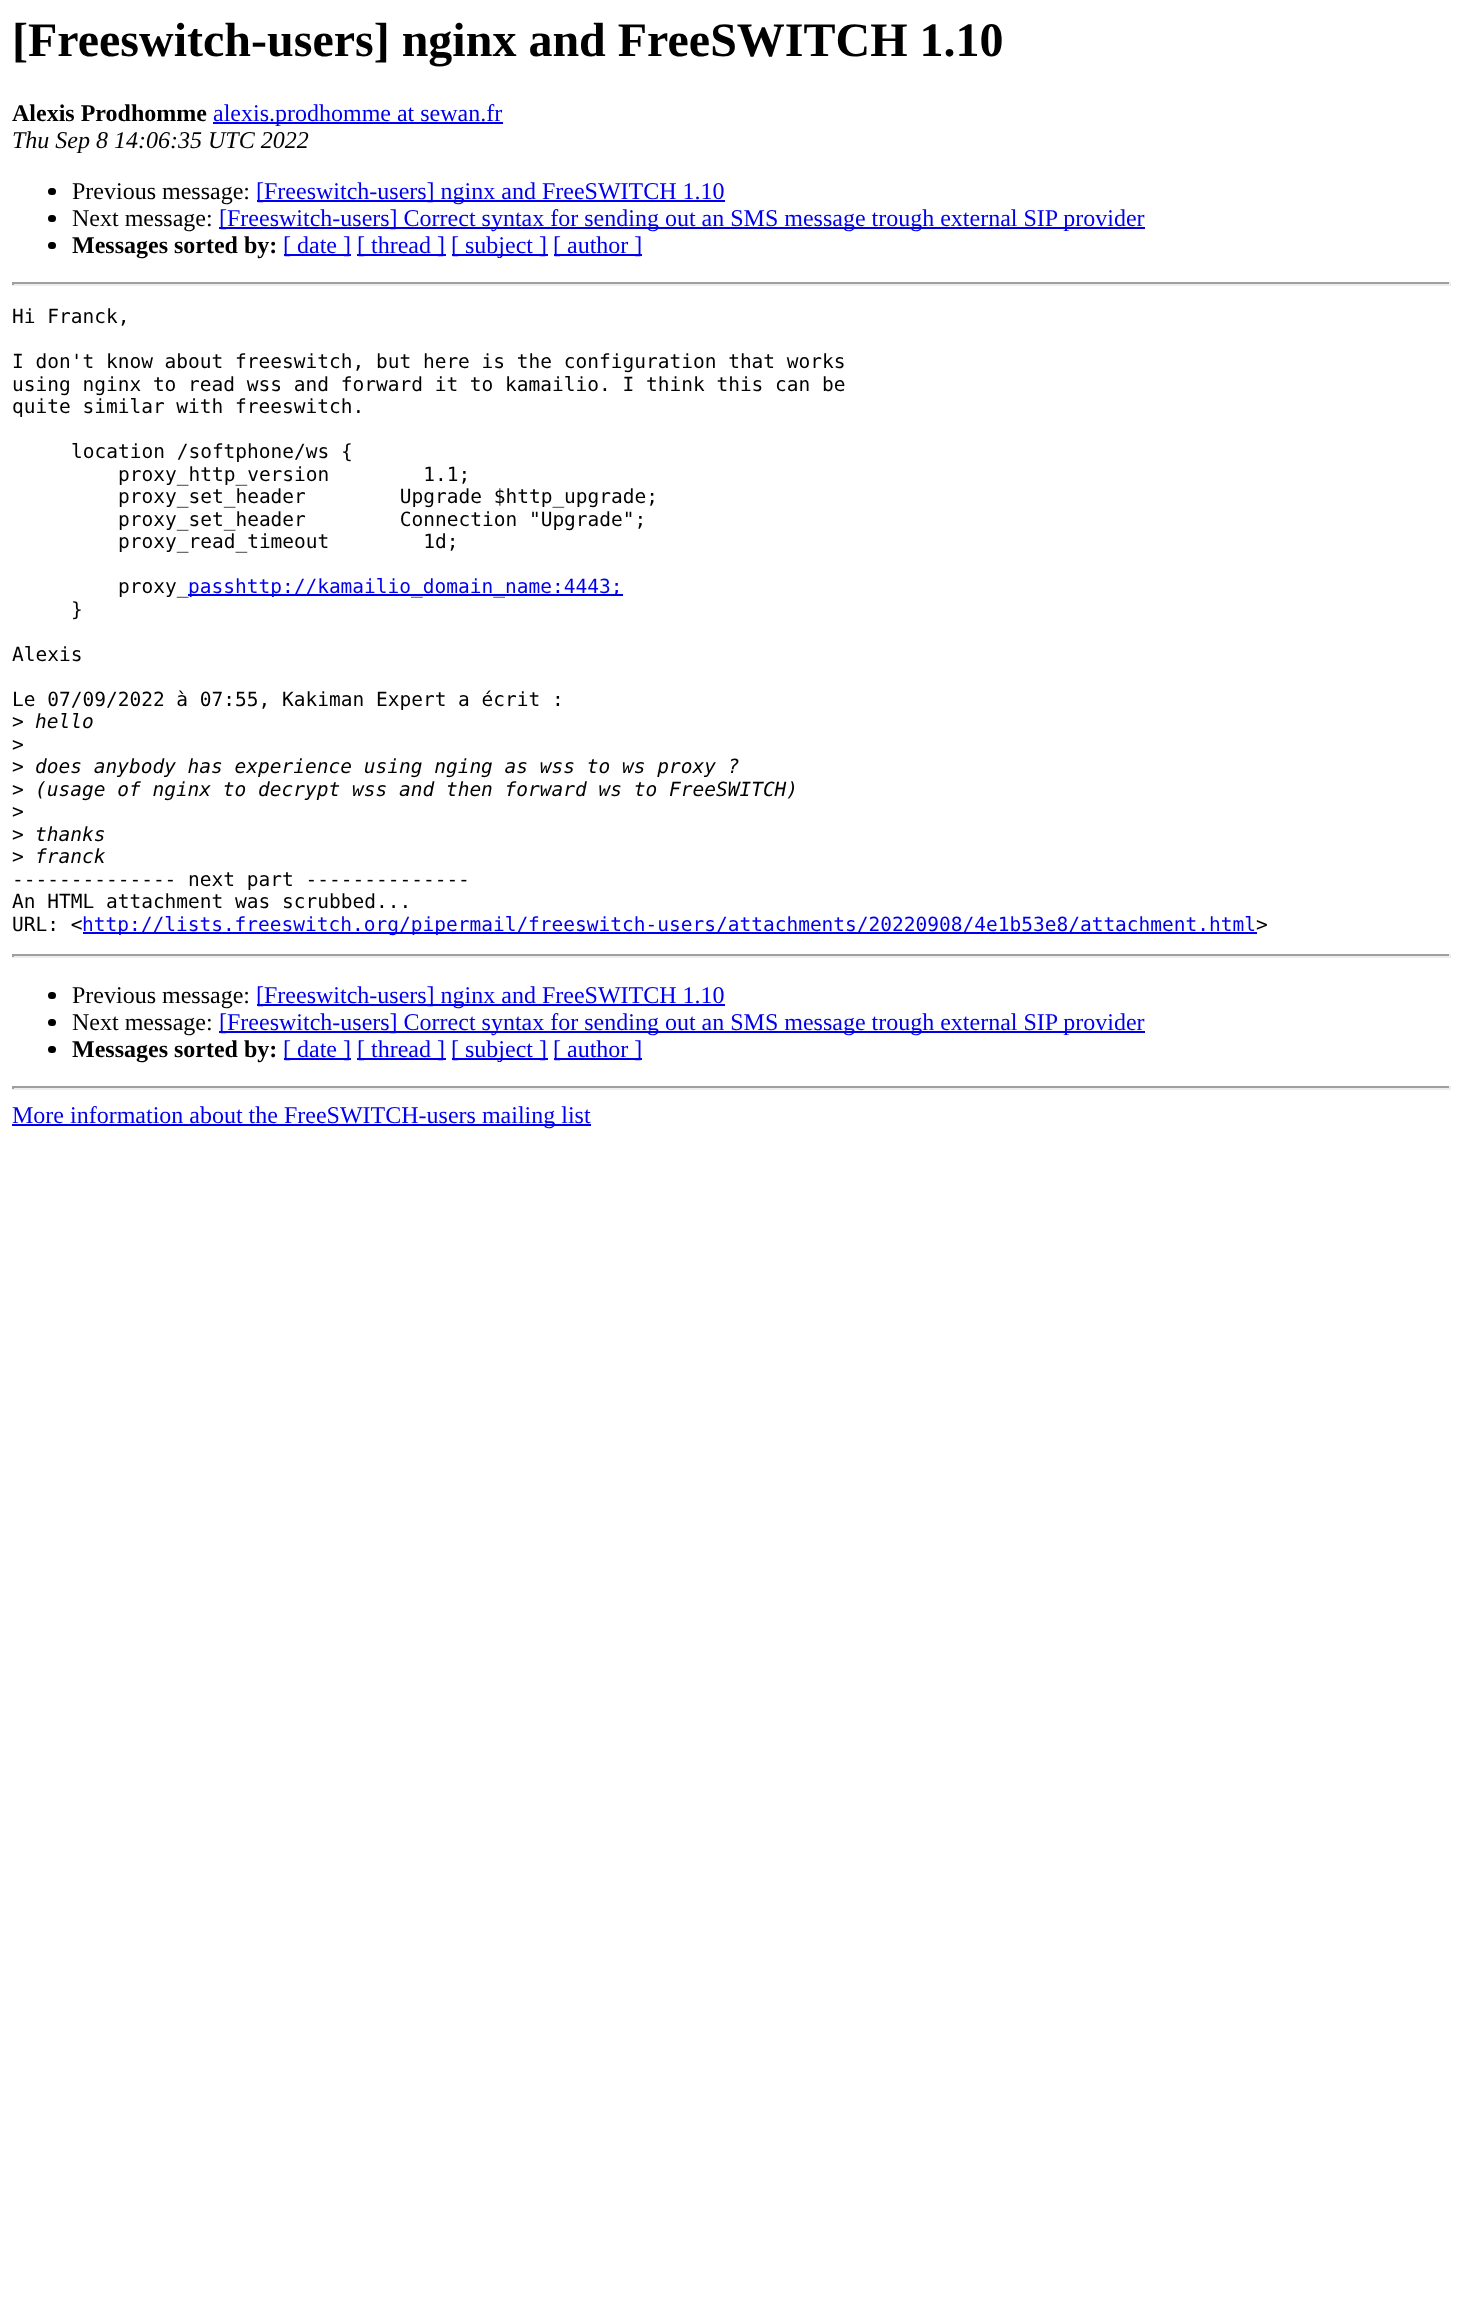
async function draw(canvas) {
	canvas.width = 1462;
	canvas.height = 2317;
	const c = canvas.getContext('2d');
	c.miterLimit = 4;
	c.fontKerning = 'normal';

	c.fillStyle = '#fff';
	c.fillRect(0, 0, 1462, 2317);
	c.font = 'bold 48px Liberation Serif';
	c.fillStyle = '#000';
	c.fillText('[Freeswitch-users] nginx and FreeSWITCH 1.10', 12, 56);
	c.font = 'bold 24px Liberation Serif';
	c.fillText('Alexis Prodhomme', 12, 121);
	c.fillStyle = '#00e';
	c.fillRect(213, 122, 290, 2);
	c.font = '24px Liberation Serif';
	c.fillText('alexis.prodhomme at sewan.fr', 213, 121);
	c.font = 'italic 24px Liberation Serif';
	c.fillStyle = '#000';
	c.fillText('Thu Sep 8 14:06:35 UTC 2022', 12, 148);
	c.beginPath();
	c.roundRect(48, 188, 8, 7, 3.5);
	c.fill();
	c.font = '24px Liberation Serif';
	c.fillText('Previous message:', 72, 199);
	c.fillStyle = '#00e';
	c.fillRect(257, 200, 468, 2);
	c.fillText('[Freeswitch-users] nginx and FreeSWITCH 1.10', 256, 199);
	c.fillStyle = '#000';
	c.beginPath();
	c.roundRect(48, 215, 8, 7, 3.5);
	c.fill();
	c.fillText('Next message:', 72, 226);
	c.fillStyle = '#00e';
	c.fillRect(219, 227, 926, 2);
	c.fillText('[Freeswitch-users] Correct syntax for sending out an SMS message trough external SIP provider', 219, 226);
	c.fillStyle = '#000';
	c.beginPath();
	c.roundRect(48, 242, 8, 7, 3.5);
	c.fill();
	c.font = 'bold 24px Liberation Serif';
	c.fillText('Messages sorted by:', 72, 253);
	c.fillStyle = '#00e';
	c.fillRect(284, 254, 67, 2);
	c.font = '24px Liberation Serif';
	c.fillText('[ date ]', 283, 253);
	c.fillRect(357, 254, 89, 2);
	c.fillText('[ thread ]', 357, 253);
	c.fillRect(452, 254, 96, 2);
	c.fillText('[ subject ]', 451, 253);
	c.fillRect(554, 254, 88, 2);
	c.fillText('[ author ]', 553, 253);
	for (const [x, y, w, h, color] of [
		[12, 282, 1439, 2, '#9f9f9f'],
		[1449, 282, 2, 3, '#eee'],
		[12, 284, 1439, 2, '#eee'],
		[12, 282, 2, 3, '#9f9f9f'],
	]) {
		c.fillStyle = color;
		c.fillRect(x, y, w, h);
	}
	c.font = '19.5px DejaVu Sans Mono';
	c.fillStyle = '#000';
	for (const [text, x, y] of [
		['Hi Franck,', 12, 323],
		['I don\'t know about freeswitch, but here is the configuration that works', 12, 368],
		['using nginx to read wss and forward it to kamailio. I think this can be', 12, 391],
		['quite similar with freeswitch.', 12, 413],
		['location /softphone/ws {', 71, 458],
		['proxy_http_version        1.1;', 118, 481],
		['proxy_set_header        Upgrade $http_upgrade;', 118, 503],
		['proxy_set_header        Connection "Upgrade";', 118, 526],
		['proxy_read_timeout        1d;', 118, 548],
		['proxy_', 118, 593],
	]) {
		c.fillText(text, x, y);
	}
	c.fillStyle = '#00e';
	c.fillRect(188, 594, 435, 2);
	c.fillText('passhttp://kamailio_domain_name:4443;', 188, 593);
	c.fillStyle = '#000';
	for (const [text, x, y] of [
		['}', 71, 616],
		['Alexis', 12, 661],
		['Le 07/09/2022 à 07:55, Kakiman Expert a écrit :', 12, 706],
		['>', 12, 728],
	]) {
		c.fillText(text, x, y);
	}
	c.font = 'italic 19.5px DejaVu Sans Mono';
	c.fillText('hello', 35, 728);
	c.font = '19.5px DejaVu Sans Mono';
	c.fillText('>', 12, 751);
	c.fillText('>', 12, 773);
	c.font = 'italic 19.5px DejaVu Sans Mono';
	c.fillText('does anybody has experience using nging as wss to ws proxy ?', 35, 773);
	c.font = '19.5px DejaVu Sans Mono';
	c.fillText('>', 12, 796);
	c.font = 'italic 19.5px DejaVu Sans Mono';
	c.fillText('(usage of nginx to decrypt wss and then forward ws to FreeSWITCH)', 35, 796);
	c.font = '19.5px DejaVu Sans Mono';
	c.fillText('>', 12, 818);
	c.fillText('>', 12, 841);
	c.font = 'italic 19.5px DejaVu Sans Mono';
	c.fillText('thanks', 35, 841);
	c.font = '19.5px DejaVu Sans Mono';
	c.fillText('>', 12, 863);
	c.font = 'italic 19.5px DejaVu Sans Mono';
	c.fillText('franck', 35, 863);
	c.font = '19.5px DejaVu Sans Mono';
	for (const [text, x, y] of [
		['-------------- next part --------------', 12, 886],
		['An HTML attachment was scrubbed...', 12, 908],
		['URL: <', 12, 931],
	]) {
		c.fillText(text, x, y);
	}
	c.fillStyle = '#00e';
	c.fillRect(83, 932, 1174, 2);
	c.fillText('http://lists.freeswitch.org/pipermail/freeswitch-users/attachments/20220908/4e1b53e8/attachment.html', 82, 931);
	c.fillStyle = '#000';
	c.fillText('>', 1256, 931);
	for (const [x, y, w, h, color] of [
		[12, 954, 1439, 2, '#9f9f9f'],
		[1449, 954, 2, 3, '#eee'],
		[12, 956, 1439, 2, '#eee'],
		[12, 954, 2, 3, '#9f9f9f'],
	]) {
		c.fillStyle = color;
		c.fillRect(x, y, w, h);
	}
	c.fillStyle = '#000';
	c.beginPath();
	c.roundRect(48, 992, 8, 7, 3.5);
	c.fill();
	c.font = '24px Liberation Serif';
	c.fillText('Previous message:', 72, 1003);
	c.fillStyle = '#00e';
	c.fillRect(257, 1004, 468, 2);
	c.fillText('[Freeswitch-users] nginx and FreeSWITCH 1.10', 256, 1003);
	c.fillStyle = '#000';
	c.beginPath();
	c.roundRect(48, 1019, 8, 7, 3.5);
	c.fill();
	c.fillText('Next message:', 72, 1030);
	c.fillStyle = '#00e';
	c.fillRect(219, 1031, 926, 2);
	c.fillText('[Freeswitch-users] Correct syntax for sending out an SMS message trough external SIP provider', 219, 1030);
	c.fillStyle = '#000';
	c.beginPath();
	c.roundRect(48, 1046, 8, 7, 3.5);
	c.fill();
	c.font = 'bold 24px Liberation Serif';
	c.fillText('Messages sorted by:', 72, 1057);
	c.fillStyle = '#00e';
	c.fillRect(284, 1058, 67, 2);
	c.font = '24px Liberation Serif';
	c.fillText('[ date ]', 283, 1057);
	c.fillRect(357, 1058, 89, 2);
	c.fillText('[ thread ]', 357, 1057);
	c.fillRect(452, 1058, 96, 2);
	c.fillText('[ subject ]', 451, 1057);
	c.fillRect(554, 1058, 88, 2);
	c.fillText('[ author ]', 553, 1057);
	for (const [x, y, w, h, color] of [
		[12, 1086, 1439, 2, '#9f9f9f'],
		[1449, 1086, 2, 3, '#eee'],
		[12, 1088, 1439, 2, '#eee'],
		[12, 1086, 2, 3, '#9f9f9f'],
		[12, 1124, 579, 2, '#00e'],
	]) {
		c.fillStyle = color;
		c.fillRect(x, y, w, h);
	}
	c.fillText('More information about the FreeSWITCH-users mailing list', 12, 1123);
}

draw(document.querySelector('canvas'));
